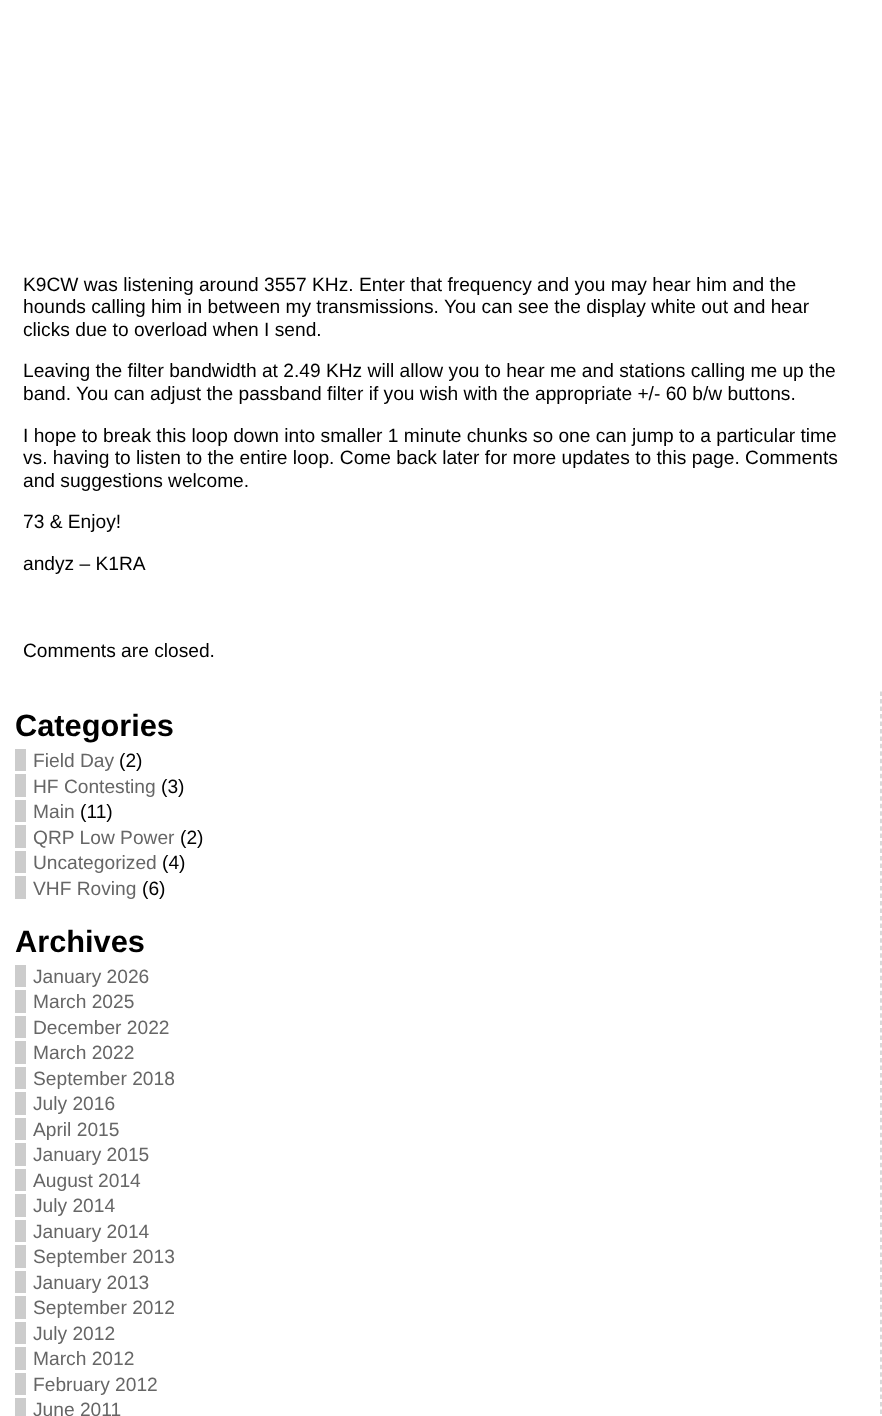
async function draw(canvas) {
	canvas.width = 882;
	canvas.height = 1416;
	const c = canvas.getContext('2d');
	c.miterLimit = 4;
	c.fontKerning = 'normal';

	c.fillStyle = '#fff';
	c.fillRect(0, 0, 882, 1416);
	c.font = '19.2px Liberation Sans';
	c.fillStyle = '#000';
	for (const [text, x, y] of [
		['K9CW was listening around 3557 KHz. Enter that frequency and you may hear him and the', 23, 291],
		['hounds calling him in between my transmissions. You can see the display white out and hear', 23, 313],
		['clicks due to overload when I send.', 23, 336],
		['Leaving the filter bandwidth at 2.49 KHz will allow you to hear me and stations calling me up the', 23, 377],
		['band.', 23, 400],
		['You can adjust the passband filter if you wish with the appropriate +/- 60 b/w buttons.', 76, 400],
		['I hope to break this loop down into smaller 1 minute chunks so one can jump to a particular time', 23, 442],
		['vs. having to listen to the entire loop. Come back later for more updates to this page. Comments', 23, 464],
		['and suggestions welcome.', 23, 487],
		['73 & Enjoy!', 23, 528],
		['andyz – K1RA', 23, 570],
		['Comments are closed.', 23, 657],
	]) {
		c.fillText(text, x, y);
	}
	c.beginPath();
	c.moveTo(881, 691.5);
	c.lineTo(881, 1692);
	c.strokeStyle = '#ccc';
	c.lineWidth = 1.5;
	c.setLineDash([4.5, 2.98]);
	c.stroke();
	c.font = 'bold 30.75px Liberation Sans';
	c.fillText('Categories', 15, 736);
	c.font = '19.2px Liberation Sans';
	c.fillStyle = '#666';
	c.fillText('Field Day', 33, 767);
	c.fillStyle = '#ccc';
	c.fillRect(15, 749, 11, 22);
	c.fillStyle = '#000';
	c.fillText('(2)', 119, 767);
	c.fillStyle = '#666';
	c.fillText('HF Contesting', 33, 793);
	c.fillStyle = '#ccc';
	c.fillRect(15, 774, 11, 23);
	c.fillStyle = '#000';
	c.fillText('(3)', 161, 793);
	c.fillStyle = '#666';
	c.fillText('Main', 33, 818);
	c.fillStyle = '#ccc';
	c.fillRect(15, 800, 11, 22);
	c.fillStyle = '#000';
	c.fillText('(11)', 80, 818);
	c.fillStyle = '#666';
	c.fillText('QRP Low Power', 33, 844);
	c.fillStyle = '#ccc';
	c.fillRect(15, 825, 11, 23);
	c.fillStyle = '#000';
	c.fillText('(2)', 180, 844);
	c.fillStyle = '#666';
	c.fillText('Uncategorized', 33, 869);
	c.fillStyle = '#ccc';
	c.fillRect(15, 851, 11, 22);
	c.fillStyle = '#000';
	c.fillText('(4)', 162, 869);
	c.fillStyle = '#666';
	c.fillText('VHF Roving', 33, 895);
	c.fillStyle = '#ccc';
	c.fillRect(15, 876, 11, 23);
	c.fillStyle = '#000';
	c.fillText('(6)', 142, 895);
	c.font = 'bold 30.75px Liberation Sans';
	c.fillText('Archives', 15, 952);
	c.fillStyle = '#ccc';
	c.fillRect(15, 965, 11, 22);
	c.font = '19.2px Liberation Sans';
	c.fillStyle = '#666';
	c.fillText('January 2026', 33, 983);
	c.fillStyle = '#ccc';
	c.fillRect(15, 990, 11, 23);
	c.fillStyle = '#666';
	c.fillText('March 2025', 33, 1008);
	c.fillStyle = '#ccc';
	c.fillRect(15, 1016, 11, 22);
	c.fillStyle = '#666';
	c.fillText('December 2022', 33, 1034);
	c.fillStyle = '#ccc';
	c.fillRect(15, 1041, 11, 23);
	c.fillStyle = '#666';
	c.fillText('March 2022', 33, 1059);
	c.fillStyle = '#ccc';
	c.fillRect(15, 1067, 11, 22);
	c.fillStyle = '#666';
	c.fillText('September 2018', 33, 1085);
	c.fillStyle = '#ccc';
	c.fillRect(15, 1092, 11, 23);
	c.fillStyle = '#666';
	c.fillText('July 2016', 33, 1110);
	c.fillStyle = '#ccc';
	c.fillRect(15, 1118, 11, 22);
	c.fillStyle = '#666';
	c.fillText('April 2015', 33, 1136);
	c.fillStyle = '#ccc';
	c.fillRect(15, 1143, 11, 23);
	c.fillStyle = '#666';
	c.fillText('January 2015', 33, 1161);
	c.fillStyle = '#ccc';
	c.fillRect(15, 1169, 11, 22);
	c.fillStyle = '#666';
	c.fillText('August 2014', 33, 1187);
	c.fillStyle = '#ccc';
	c.fillRect(15, 1194, 11, 23);
	c.fillStyle = '#666';
	c.fillText('July 2014', 33, 1212);
	c.fillStyle = '#ccc';
	c.fillRect(15, 1220, 11, 22);
	c.fillStyle = '#666';
	c.fillText('January 2014', 33, 1238);
	c.fillStyle = '#ccc';
	c.fillRect(15, 1245, 11, 23);
	c.fillStyle = '#666';
	c.fillText('September 2013', 33, 1263);
	c.fillStyle = '#ccc';
	c.fillRect(15, 1271, 11, 22);
	c.fillStyle = '#666';
	c.fillText('January 2013', 33, 1289);
	c.fillStyle = '#ccc';
	c.fillRect(15, 1296, 11, 23);
	c.fillStyle = '#666';
	c.fillText('September 2012', 33, 1314);
	c.fillStyle = '#ccc';
	c.fillRect(15, 1322, 11, 22);
	c.fillStyle = '#666';
	c.fillText('July 2012', 33, 1340);
	c.fillStyle = '#ccc';
	c.fillRect(15, 1347, 11, 23);
	c.fillStyle = '#666';
	c.fillText('March 2012', 33, 1365);
	c.fillStyle = '#ccc';
	c.fillRect(15, 1373, 11, 22);
	c.fillStyle = '#666';
	c.fillText('February 2012', 33, 1391);
	c.fillStyle = '#ccc';
	c.fillRect(15, 1398, 11, 18);
	c.fillStyle = '#666';
	c.fillText('June 2011', 33, 1416);
}

draw(document.querySelector('canvas'));
